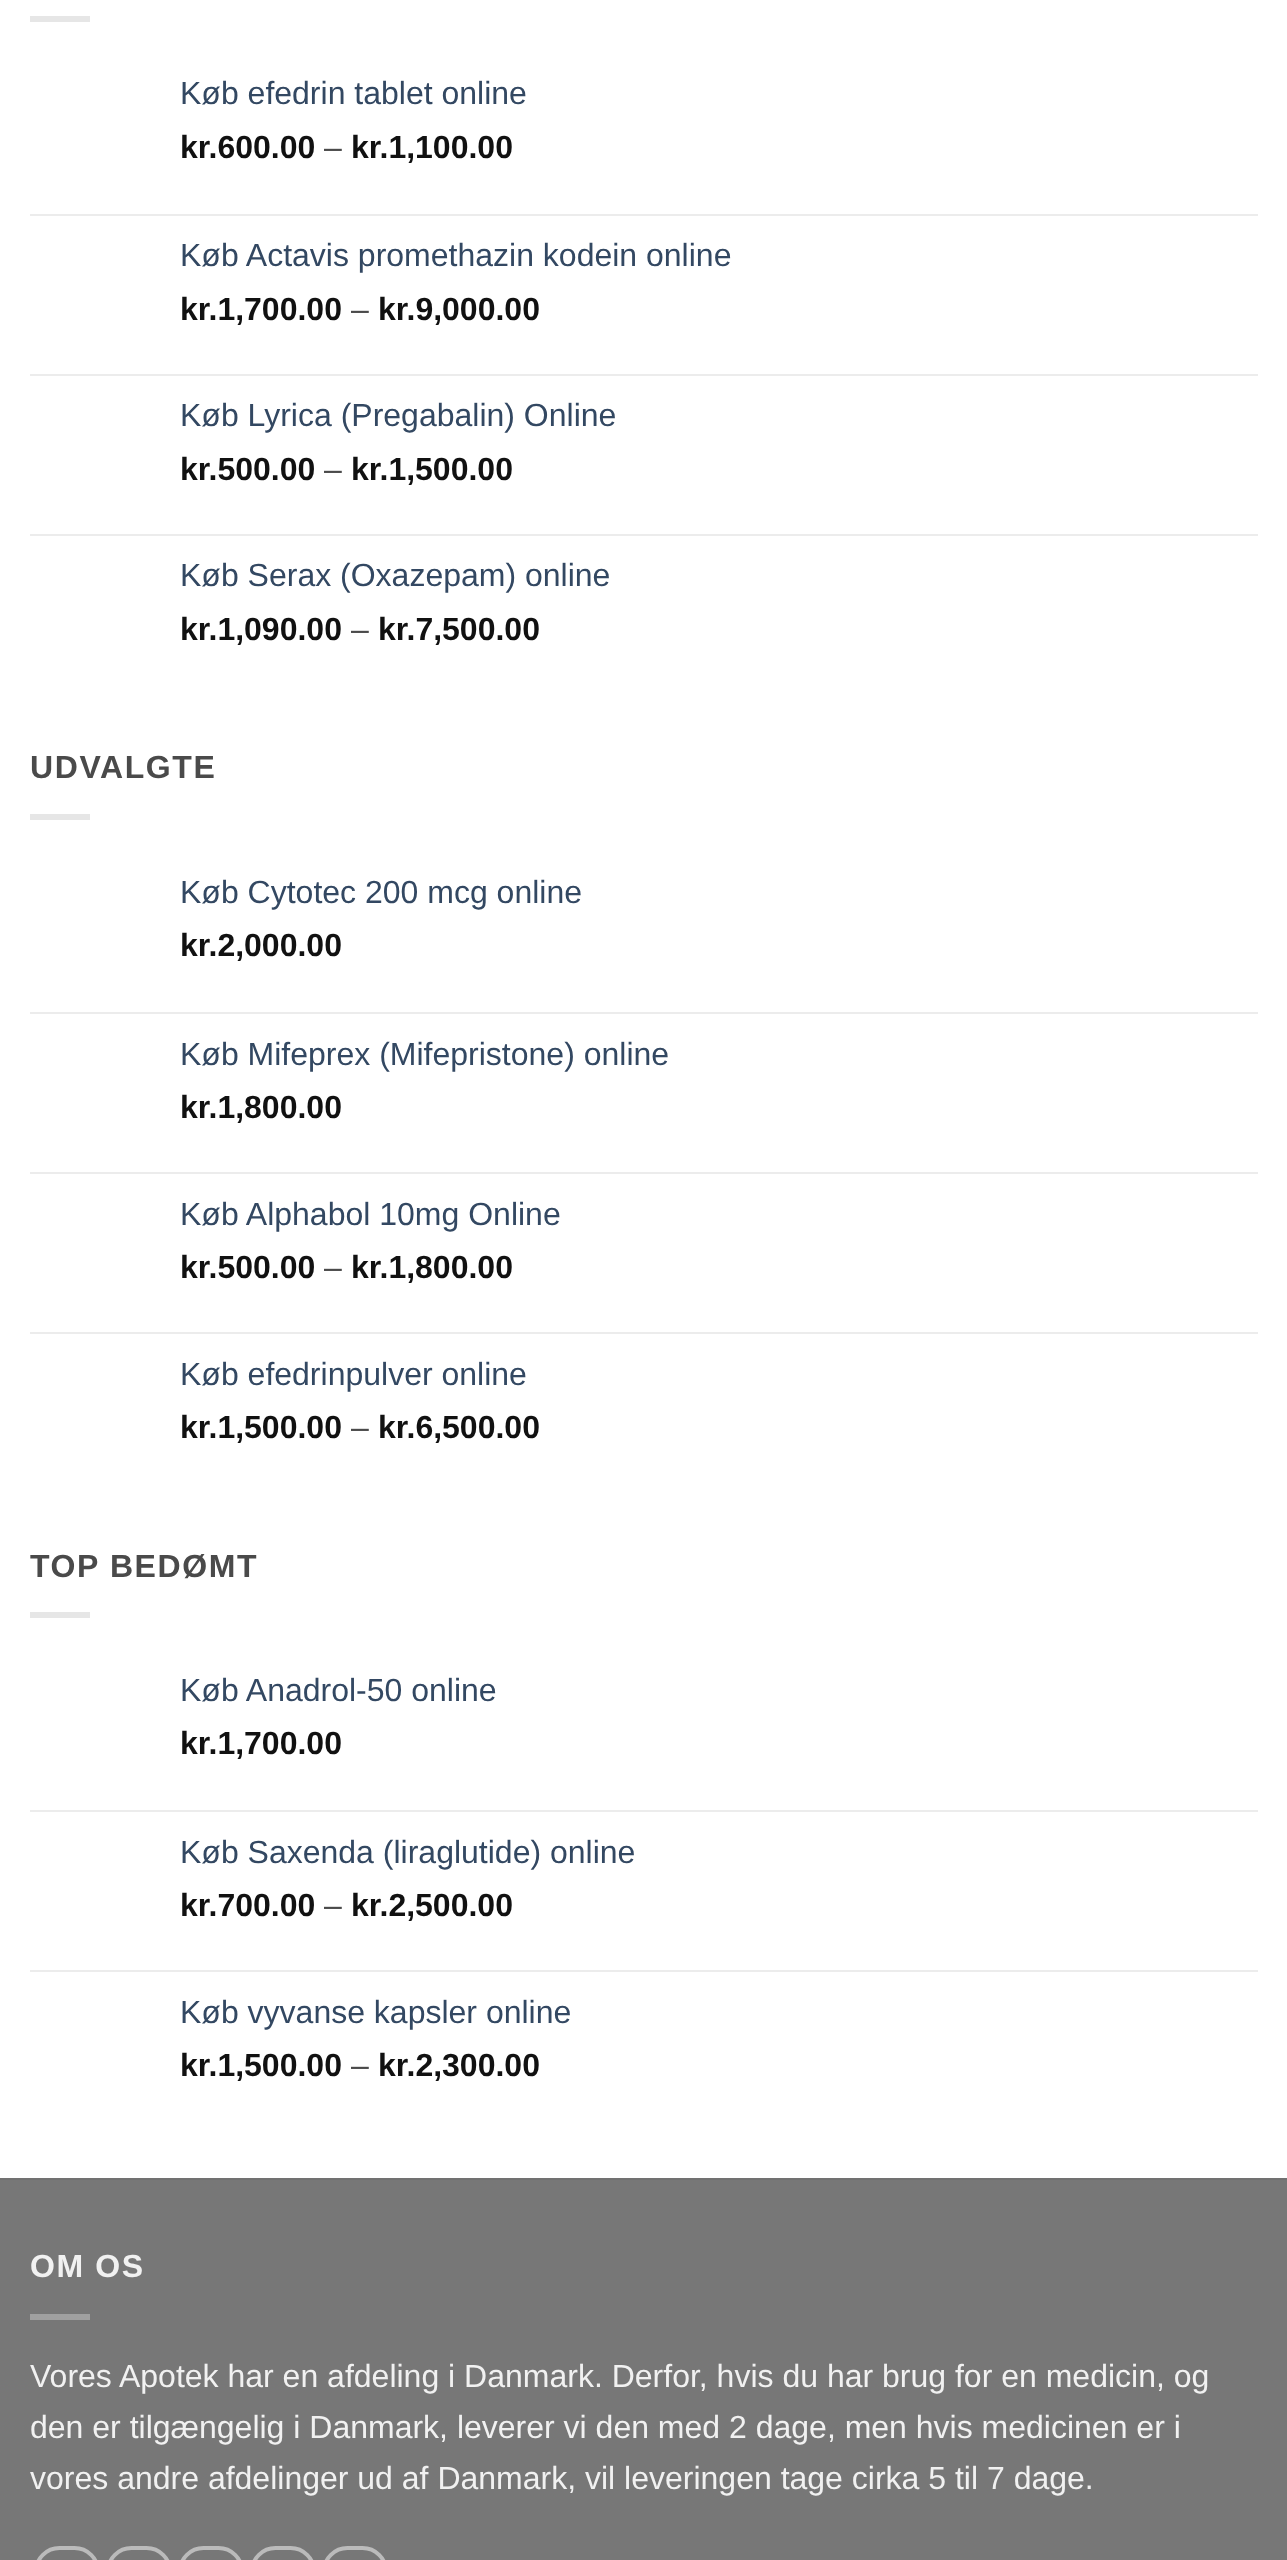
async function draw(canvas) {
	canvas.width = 1287;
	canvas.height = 2560;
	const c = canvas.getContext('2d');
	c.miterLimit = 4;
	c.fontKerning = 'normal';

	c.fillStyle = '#fff';
	c.fillRect(0, 0, 1287, 2560);
	c.fillStyle = '#e6e6e6';
	c.fillRect(30, 16, 60, 6);
	c.font = '32px Liberation Sans';
	c.fillStyle = '#334862';
	c.fillText('Køb efedrin tablet online', 180, 104);
	c.font = 'bold 32px Liberation Sans';
	c.fillStyle = '#111';
	c.fillText('kr.600.00', 180, 158);
	c.font = '32px Liberation Sans';
	c.fillStyle = '#4a4a4a';
	c.fillText('–', 324, 158);
	c.font = 'bold 32px Liberation Sans';
	c.fillStyle = '#111';
	c.fillText('kr.1,100.00', 351, 158);
	c.fillStyle = '#ececec';
	c.fillRect(30, 214, 1228, 2);
	c.font = '32px Liberation Sans';
	c.fillStyle = '#334862';
	c.fillText('Køb Actavis promethazin kodein online', 180, 266);
	c.font = 'bold 32px Liberation Sans';
	c.fillStyle = '#111';
	c.fillText('kr.1,700.00', 180, 320);
	c.font = '32px Liberation Sans';
	c.fillStyle = '#4a4a4a';
	c.fillText('–', 351, 320);
	c.font = 'bold 32px Liberation Sans';
	c.fillStyle = '#111';
	c.fillText('kr.9,000.00', 378, 320);
	c.fillStyle = '#ececec';
	c.fillRect(30, 374, 1228, 2);
	c.font = '32px Liberation Sans';
	c.fillStyle = '#334862';
	c.fillText('Køb Lyrica (Pregabalin) Online', 180, 426);
	c.font = 'bold 32px Liberation Sans';
	c.fillStyle = '#111';
	c.fillText('kr.500.00', 180, 480);
	c.font = '32px Liberation Sans';
	c.fillStyle = '#4a4a4a';
	c.fillText('–', 324, 480);
	c.font = 'bold 32px Liberation Sans';
	c.fillStyle = '#111';
	c.fillText('kr.1,500.00', 351, 480);
	c.fillStyle = '#ececec';
	c.fillRect(30, 534, 1228, 2);
	c.font = '32px Liberation Sans';
	c.fillStyle = '#334862';
	c.fillText('Køb Serax (Oxazepam) online', 180, 586);
	c.font = 'bold 32px Liberation Sans';
	c.fillStyle = '#111';
	c.fillText('kr.1,090.00', 180, 640);
	c.font = '32px Liberation Sans';
	c.fillStyle = '#4a4a4a';
	c.fillText('–', 351, 640);
	c.font = 'bold 32px Liberation Sans';
	c.fillStyle = '#111';
	c.fillText('kr.7,500.00', 378, 640);
	c.letterSpacing = '1.6px';
	c.fillStyle = '#4a4a4a';
	c.fillText('UDVALGTE', 30, 778);
	c.fillStyle = '#e6e6e6';
	c.fillRect(30, 814, 60, 6);
	c.letterSpacing = '0px';
	c.font = '32px Liberation Sans';
	c.fillStyle = '#334862';
	c.fillText('Køb Cytotec 200 mcg online', 180, 903);
	c.font = 'bold 32px Liberation Sans';
	c.fillStyle = '#111';
	c.fillText('kr.2,000.00', 180, 956);
	c.fillStyle = '#ececec';
	c.fillRect(30, 1012, 1228, 2);
	c.font = '32px Liberation Sans';
	c.fillStyle = '#334862';
	c.fillText('Køb Mifeprex (Mifepristone) online', 180, 1065);
	c.font = 'bold 32px Liberation Sans';
	c.fillStyle = '#111';
	c.fillText('kr.1,800.00', 180, 1118);
	c.fillStyle = '#ececec';
	c.fillRect(30, 1172, 1228, 2);
	c.font = '32px Liberation Sans';
	c.fillStyle = '#334862';
	c.fillText('Køb Alphabol 10mg Online', 180, 1225);
	c.font = 'bold 32px Liberation Sans';
	c.fillStyle = '#111';
	c.fillText('kr.500.00', 180, 1278);
	c.font = '32px Liberation Sans';
	c.fillStyle = '#4a4a4a';
	c.fillText('–', 324, 1278);
	c.font = 'bold 32px Liberation Sans';
	c.fillStyle = '#111';
	c.fillText('kr.1,800.00', 351, 1278);
	c.fillStyle = '#ececec';
	c.fillRect(30, 1332, 1228, 2);
	c.font = '32px Liberation Sans';
	c.fillStyle = '#334862';
	c.fillText('Køb efedrinpulver online', 180, 1385);
	c.font = 'bold 32px Liberation Sans';
	c.fillStyle = '#111';
	c.fillText('kr.1,500.00', 180, 1438);
	c.font = '32px Liberation Sans';
	c.fillStyle = '#4a4a4a';
	c.fillText('–', 351, 1438);
	c.font = 'bold 32px Liberation Sans';
	c.fillStyle = '#111';
	c.fillText('kr.6,500.00', 378, 1438);
	c.letterSpacing = '1.6px';
	c.fillStyle = '#4a4a4a';
	c.fillText('TOP BEDØMT', 30, 1577);
	c.fillStyle = '#e6e6e6';
	c.fillRect(30, 1612, 60, 6);
	c.letterSpacing = '0px';
	c.font = '32px Liberation Sans';
	c.fillStyle = '#334862';
	c.fillText('Køb Anadrol-50 online', 180, 1701);
	c.font = 'bold 32px Liberation Sans';
	c.fillStyle = '#111';
	c.fillText('kr.1,700.00', 180, 1754);
	c.fillStyle = '#ececec';
	c.fillRect(30, 1810, 1228, 2);
	c.font = '32px Liberation Sans';
	c.fillStyle = '#334862';
	c.fillText('Køb Saxenda (liraglutide) online', 180, 1863);
	c.font = 'bold 32px Liberation Sans';
	c.fillStyle = '#111';
	c.fillText('kr.700.00', 180, 1916);
	c.font = '32px Liberation Sans';
	c.fillStyle = '#4a4a4a';
	c.fillText('–', 324, 1916);
	c.font = 'bold 32px Liberation Sans';
	c.fillStyle = '#111';
	c.fillText('kr.2,500.00', 351, 1916);
	c.fillStyle = '#ececec';
	c.fillRect(30, 1970, 1228, 2);
	c.font = '32px Liberation Sans';
	c.fillStyle = '#334862';
	c.fillText('Køb vyvanse kapsler online', 180, 2023);
	c.font = 'bold 32px Liberation Sans';
	c.fillStyle = '#111';
	c.fillText('kr.1,500.00', 180, 2076);
	c.font = '32px Liberation Sans';
	c.fillStyle = '#4a4a4a';
	c.fillText('–', 351, 2076);
	c.font = 'bold 32px Liberation Sans';
	c.fillStyle = '#111';
	c.fillText('kr.2,300.00', 378, 2076);
	c.fillStyle = '#777';
	c.fillRect(0, 2180, 1287, 380);
	c.fillStyle = '#717171';
	c.fillRect(0, 2178, 1287, 2);
	c.letterSpacing = '1.6px';
	c.fillStyle = '#f1f1f1';
	c.fillText('OM OS', 30, 2277);
	c.fillStyle = '#a0a0a0';
	c.fillRect(30, 2314, 60, 6);
	c.letterSpacing = '0px';
	c.font = '32px Liberation Sans';
	c.fillStyle = '#f1f1f1';
	for (const [text, x, y] of [
		['Vores Apotek har en afdeling i Danmark. Derfor, hvis du har brug for en medicin, og', 30, 2387],
		['den er tilgængelig i Danmark, leverer vi den med 2 dage, men hvis medicinen er i', 30, 2438],
		['vores andre afdelinger ud af Danmark, vil leveringen tage cirka 5 til 7 dage.', 30, 2489],
	]) {
		c.fillText(text, x, y);
	}
	c.beginPath();
	c.roundRect(36, 2548, 62, 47, 31);
	c.strokeStyle = '#bbb';
	c.lineWidth = 4;
	c.stroke();
	c.beginPath();
	c.roundRect(108, 2548, 62, 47, 31);
	c.stroke();
	c.beginPath();
	c.roundRect(180, 2548, 62, 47, 31);
	c.stroke();
	c.beginPath();
	c.roundRect(252, 2548, 62, 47, 31);
	c.stroke();
	c.beginPath();
	c.roundRect(324, 2548, 62, 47, 31);
	c.stroke();
}

draw(document.querySelector('canvas'));
